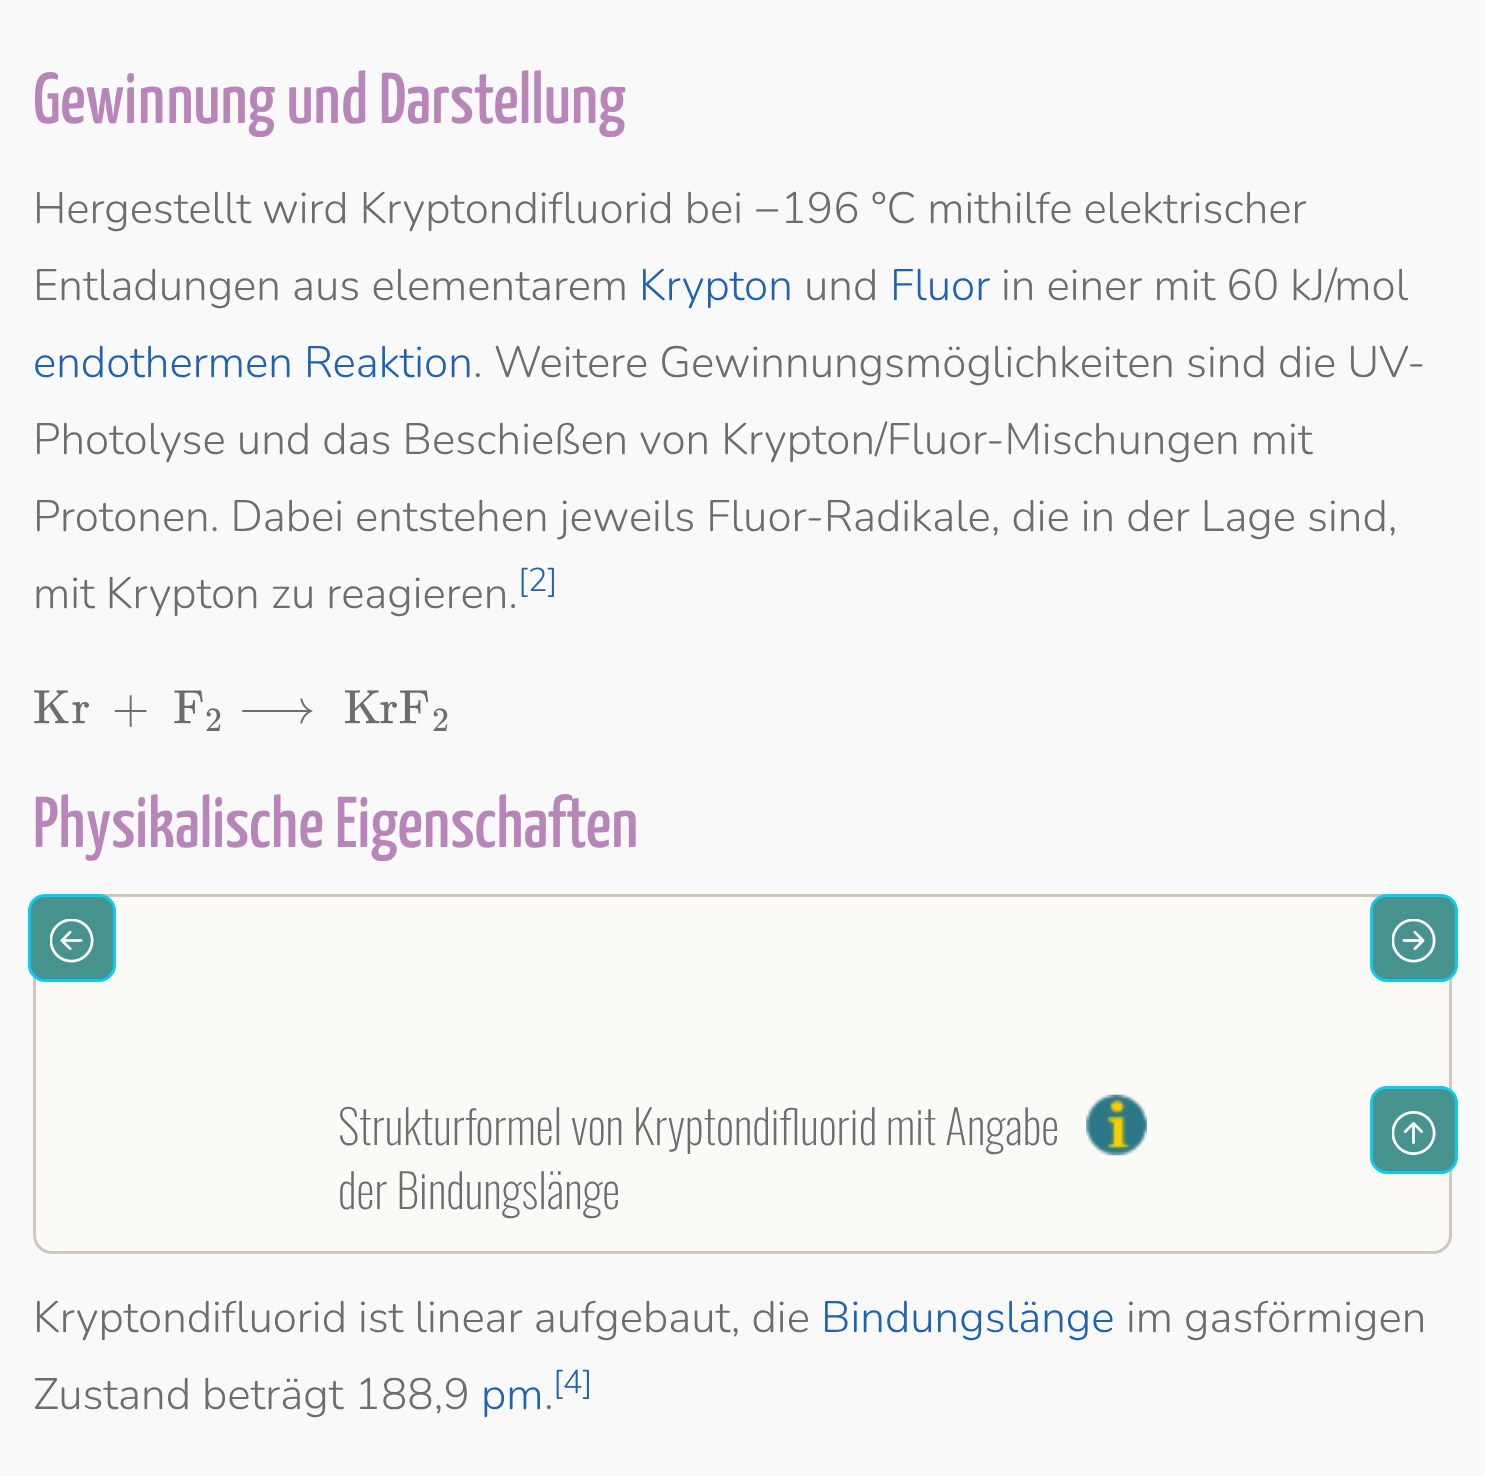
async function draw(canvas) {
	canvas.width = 1485;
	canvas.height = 1476;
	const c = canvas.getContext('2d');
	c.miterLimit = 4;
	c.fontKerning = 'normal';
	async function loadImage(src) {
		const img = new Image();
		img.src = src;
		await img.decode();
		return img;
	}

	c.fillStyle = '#f9f9f9';
	c.fillRect(0, 0, 1485, 1476);
	c.font = '500 71.75px Yanone Kaffeesatz';
	c.fillStyle = '#b885b8';
	c.fillText('Gewinnung und Darstellung', 33, 123);
	c.font = '300 44px Nunito';
	c.fillStyle = '#6d6d6d';
	c.fillText('Hergestellt wird Kryptondifluorid bei −196 °C mithilfe elektrischer', 33, 223);
	c.fillText('Entladungen aus elementarem', 33, 300);
	c.fillStyle = '#1f62b3';
	c.fillText('Krypton', 639, 300);
	c.fillStyle = '#6d6d6d';
	c.fillText('und', 804, 300);
	c.fillStyle = '#1f62b3';
	c.fillText('Fluor', 890, 300);
	c.fillStyle = '#6d6d6d';
	c.fillText('in einer mit 60 kJ/mol', 1001, 300);
	c.fillStyle = '#1f62b3';
	c.fillText('endothermen Reaktion', 33, 377);
	c.fillStyle = '#6d6d6d';
	for (const [text, x, y] of [
		['. Weitere Gewinnungsmöglichkeiten sind die UV-', 473, 377],
		['Photolyse und das Beschießen von Krypton/Fluor-Mischungen mit', 33, 454],
		['Protonen. Dabei entstehen jeweils Fluor-Radikale, die in der Lage sind,', 33, 531],
		['mit Krypton zu reagieren.', 33, 608],
	]) {
		c.fillText(text, x, y);
	}
	c.font = '300 33px Nunito';
	c.fillStyle = '#1f62b3';
	c.fillText('[2]', 518, 591);
	c.drawImage(await loadImage('img1.png'), 34, 690, 35, 34);
	c.drawImage(await loadImage('img2.png'), 72, 701, 17, 23);
	c.font = '48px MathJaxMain';
	c.fillStyle = '#6d6d6d';
	c.fillText('+', 112, 723);
	c.drawImage(await loadImage('img3.png'), 174, 690, 29, 34);
	c.font = '34px MathJaxMain';
	c.fillText('2', 205, 731);
	c.font = '48px MathJaxMain';
	c.fillText('⟶', 238, 723);
	c.drawImage(await loadImage('img4.png'), 344, 690, 36, 34);
	c.drawImage(await loadImage('img2.png'), 380, 701, 17, 23);
	c.drawImage(await loadImage('img5.png'), 399, 690, 30, 34);
	c.font = '34px MathJaxMain';
	c.fillText('2', 432, 731);
	c.font = '500 71.75px Yanone Kaffeesatz';
	c.fillStyle = '#b885b8';
	c.fillText('Physikalische Eigenschaften', 33, 847);
	c.fillStyle = '#fcfaf7';
	c.beginPath();
	c.roundRect(34.5, 895.5, 1416, 357, 17.5);
	c.fill();
	c.strokeStyle = '#cec9bc';
	c.lineWidth = 3;
	c.stroke();
	c.font = '200 46.75px Oswald';
	c.fillStyle = '#6d6d6d';
	c.fillText('Strukturformel von Kryptondifluorid mit Angabe', 338, 1145);
	c.drawImage(await loadImage('img6.png'), 1086, 1094, 61, 62);
	c.fillText('der Bindungslänge', 338, 1209);
	c.font = '300 44px Nunito';
	c.fillText('Kryptondifluorid ist linear aufgebaut, die', 33, 1332);
	c.fillStyle = '#1f62b3';
	c.fillText('Bindungslänge', 821, 1332);
	c.fillStyle = '#6d6d6d';
	c.fillText('im gasförmigen', 1126, 1332);
	c.fillText('Zustand beträgt 188,9', 33, 1409);
	c.fillStyle = '#1f62b3';
	c.fillText('pm', 481, 1409);
	c.fillStyle = '#6d6d6d';
	c.fillText('.', 544, 1409);
	c.font = '300 33px Nunito';
	c.fillStyle = '#1f62b3';
	c.fillText('[4]', 553, 1393);
	c.fillStyle = '#45938c';
	c.beginPath();
	c.roundRect(29.5, 895.5, 85, 85, 15.5);
	c.fill();
	c.strokeStyle = '#0dcaf0';
	c.stroke();
	c.drawImage(await loadImage('img7.png'), 50, 919, 44, 44);
	c.beginPath();
	c.roundRect(1371.5, 895.5, 85, 85, 15.5);
	c.fill();
	c.stroke();
	c.drawImage(await loadImage('img8.png'), 1392, 919, 44, 44);
	c.beginPath();
	c.roundRect(1371.5, 1087.5, 85, 85, 15.5);
	c.fill();
	c.stroke();
	c.drawImage(await loadImage('img9.png'), 1392, 1111, 44, 44);
}

draw(document.querySelector('canvas'));
